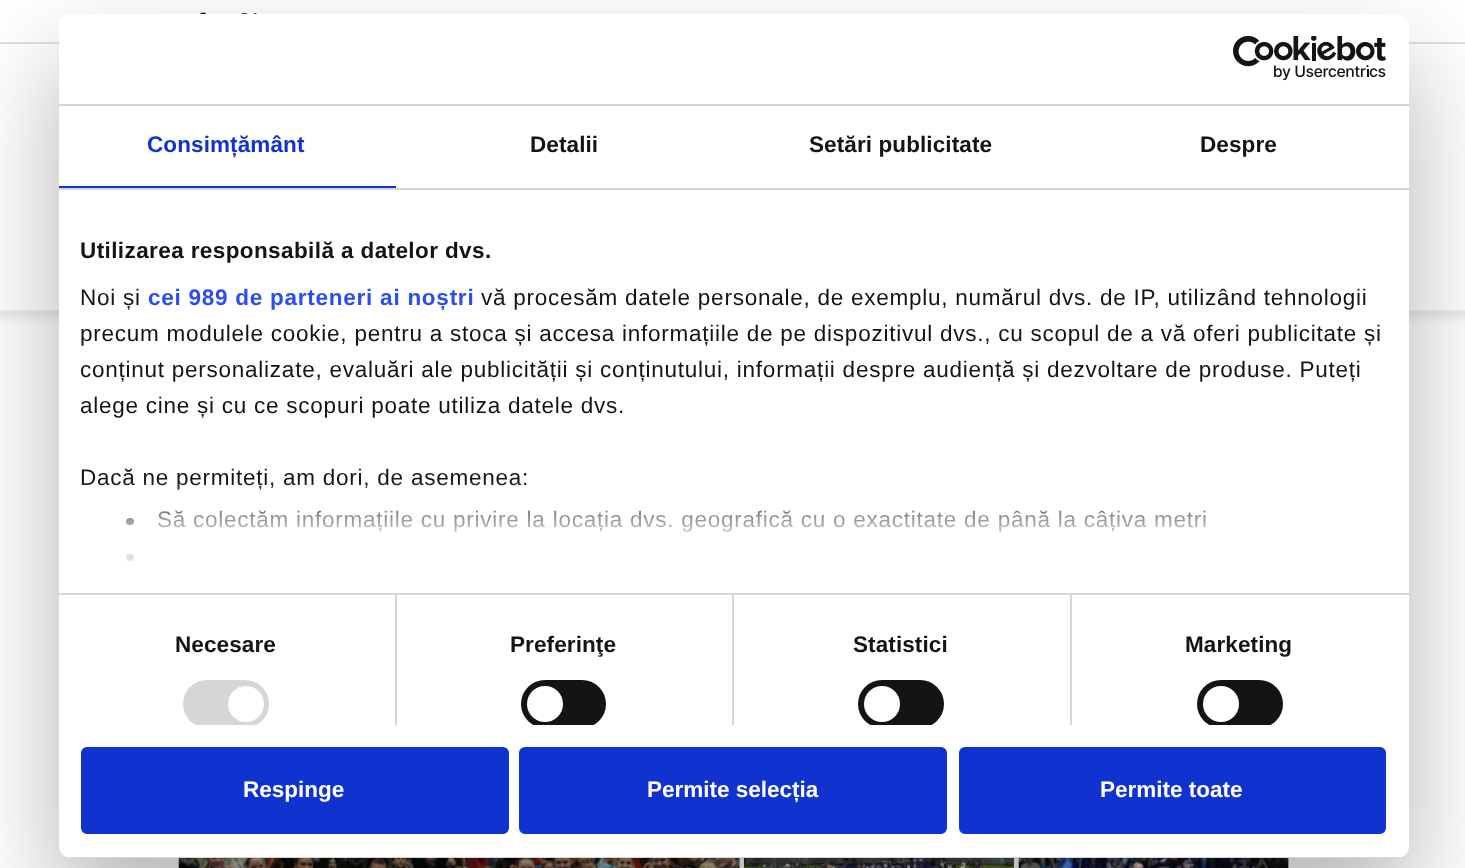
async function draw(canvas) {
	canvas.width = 1465;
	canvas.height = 868;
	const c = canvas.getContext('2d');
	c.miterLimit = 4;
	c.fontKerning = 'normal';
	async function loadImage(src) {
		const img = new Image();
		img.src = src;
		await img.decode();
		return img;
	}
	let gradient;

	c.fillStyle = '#fff';
	c.fillRect(0, 0, 1465, 868);
	c.fillStyle = '#e0e0e0';
	c.fillRect(0, 42, 1465, 2);
	c.drawImage(await loadImage('img1.png'), 200, 12, 6, 2);
	c.drawImage(await loadImage('img2.png'), 241, 13, 16, 1);
	c.drawImage(await loadImage('img3.png'), 0, 310, 1465, 13);
	c.fillStyle = '#e5e5e5';
	c.fillRect(739, 858, 1, 10);
	c.drawImage(await loadImage('img4.png'), 178, 858, 562, 10);
	gradient = c.createLinearGradient(459, 605, 459, 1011);
	gradient.addColorStop(0.4, '#00000000');
	gradient.addColorStop(1, '#000000b3');
	c.fillStyle = gradient;
	c.fillRect(179, 858, 561, 10);
	c.drawImage(await loadImage('img5.png'), 744, 858, 270, 10);
	c.fillStyle = '#e5e5e5';
	c.fillRect(1288, 858, 1, 10);
	c.drawImage(await loadImage('img6.png'), 1018, 858, 271, 10);
	c.fillStyle = '#0000004d';
	c.filter = 'blur(51px)';
	c.beginPath();
	c.roundRect(59, 62, 1350, 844, 12);
	c.fill();
	c.filter = 'none';
	c.fillStyle = '#fff';
	c.beginPath();
	c.roundRect(59, 14, 1350, 844, 12);
	c.fill();
	c.fillStyle = '#d6d6d6';
	c.fillRect(59, 104, 1350, 2);
	c.drawImage(await loadImage('img7.png'), 1233, 36, 153, 45);
	c.fillRect(59, 188, 1350, 2);
	c.fillStyle = '#1032cf';
	c.fillRect(59, 186, 337, 2);
	c.letterSpacing = '0.1px';
	c.font = 'bold 22.5px Liberation Sans';
	c.fillText('Consimțământ', 147, 152);
	c.fillStyle = '#141414';
	for (const [text, x, y] of [
		['Detalii', 530, 152],
		['Setări publicitate', 809, 152],
		['Despre', 1200, 152],
	]) {
		c.fillText(text, x, y);
	}
	for (const [x, y, w, h, color] of [
		[395, 594, 2, 131, '#d6d6d6'],
		[732, 594, 2, 131, '#d6d6d6'],
		[1070, 594, 2, 131, '#d6d6d6'],
		[59, 593, 1350, 2, '#d6d6d6'],
	]) {
		c.fillStyle = color;
		c.fillRect(x, y, w, h);
	}
	c.letterSpacing = '0.4px';
	c.fillStyle = '#141414';
	c.fillText('Utilizarea responsabilă a datelor dvs.', 80, 258);
	c.letterSpacing = '0.75px';
	c.font = '22.5px Liberation Sans';
	c.fillText('Noi și', 80, 305);
	c.font = 'bold 22.5px Liberation Sans';
	c.fillStyle = '#2a4eef';
	c.fillText('cei 989 de parteneri ai noștri', 148, 305);
	c.font = '22.5px Liberation Sans';
	c.fillStyle = '#141414';
	for (const [text, x, y] of [
		['vă procesăm datele personale, de exemplu, numărul dvs. de IP, utilizând tehnologii', 481, 305],
		['precum modulele cookie, pentru a stoca și accesa informațiile de pe dispozitivul dvs., cu scopul de a vă oferi publicitate și', 80, 341],
		['conținut personalizate, evaluări ale publicității și conținutului, informații despre audiență și dezvoltare de produse. Puteți', 80, 377],
		['alege cine și cu ce scopuri poate utiliza datele dvs.', 80, 413],
		['Dacă ne permiteți, am dori, de asemenea:', 80, 485],
	]) {
		c.fillText(text, x, y);
	}
	c.beginPath();
	c.roundRect(126, 518, 8, 7, 3.5);
	c.fill();
	c.fillText('Să colectăm informațiile cu privire la locația dvs. geografică cu o exactitate de până la câțiva metri', 157, 527);
	c.beginPath();
	c.roundRect(126, 554, 8, 7, 3.5);
	c.fill();
	gradient = c.createLinearGradient(724, 592, 724, 479);
	gradient.addColorStop(0, '#fff');
	gradient.addColorStop(0.5, '#ffffffcc');
	gradient.addColorStop(1, '#ffffff00');
	c.fillStyle = gradient;
	c.fillRect(82, 481, 1124, 80);
	c.letterSpacing = '0.1px';
	c.font = 'bold 22.5px Liberation Sans';
	c.fillStyle = '#141414';
	c.fillText('Necesare', 175, 652);
	c.save();
	c.beginPath();
	c.rect(59, 189, 1350, 536);
	c.clip();
	c.fillStyle = '#d6d6d6';
	c.beginPath();
	c.roundRect(183, 680, 86, 48, 24);
	c.fill();
	c.restore();
	c.fillStyle = '#fff';
	c.beginPath();
	c.arc(246, 704, 18, 0, 2 * Math.PI);
	c.fill();
	c.fillStyle = '#141414';
	c.fillText('Preferinţe', 510, 652);
	c.save();
	c.beginPath();
	c.rect(59, 189, 1350, 536);
	c.clip();
	c.beginPath();
	c.roundRect(521, 680, 85, 48, 24);
	c.fill();
	c.restore();
	c.fillStyle = '#fff';
	c.beginPath();
	c.arc(545, 704, 18, 0, 2 * Math.PI);
	c.fill();
	c.fillStyle = '#141414';
	c.fillText('Statistici', 853, 652);
	c.save();
	c.beginPath();
	c.rect(59, 189, 1350, 536);
	c.clip();
	c.beginPath();
	c.roundRect(858, 680, 86, 48, 24);
	c.fill();
	c.restore();
	c.fillStyle = '#fff';
	c.beginPath();
	c.arc(882, 704, 18, 0, 2 * Math.PI);
	c.fill();
	c.fillStyle = '#141414';
	c.fillText('Marketing', 1185, 652);
	c.save();
	c.beginPath();
	c.rect(59, 189, 1350, 536);
	c.clip();
	c.beginPath();
	c.roundRect(1197, 680, 86, 48, 24);
	c.fill();
	c.restore();
	c.fillStyle = '#fff';
	c.beginPath();
	c.arc(1221, 704, 18, 0, 2 * Math.PI);
	c.fill();
	c.save();
	c.beginPath();
	c.roundRect(59, 14, 1350, 844, 12);
	c.clip();
	c.fillStyle = '#d6d6d6';
	c.fillRect(59, 857, 1350, 1);
	c.restore();
	c.fillStyle = '#1032cf';
	c.beginPath();
	c.roundRect(82.5, 748.5, 425, 84, 4.5);
	c.fill();
	c.strokeStyle = '#1032cf';
	c.lineWidth = 3;
	c.stroke();
	c.letterSpacing = '0px';
	c.fillStyle = '#fff';
	c.fillText('Respinge', 243, 797);
	c.fillStyle = '#1032cf';
	c.beginPath();
	c.roundRect(520.5, 748.5, 425, 84, 4.5);
	c.fill();
	c.stroke();
	c.fillStyle = '#fff';
	c.fillText('Permite selecția', 647, 797);
	c.fillStyle = '#1032cf';
	c.beginPath();
	c.roundRect(960.5, 748.5, 424, 84, 4.5);
	c.fill();
	c.stroke();
	c.fillStyle = '#fff';
	c.fillText('Permite toate', 1100, 797);
}

draw(document.querySelector('canvas'));
